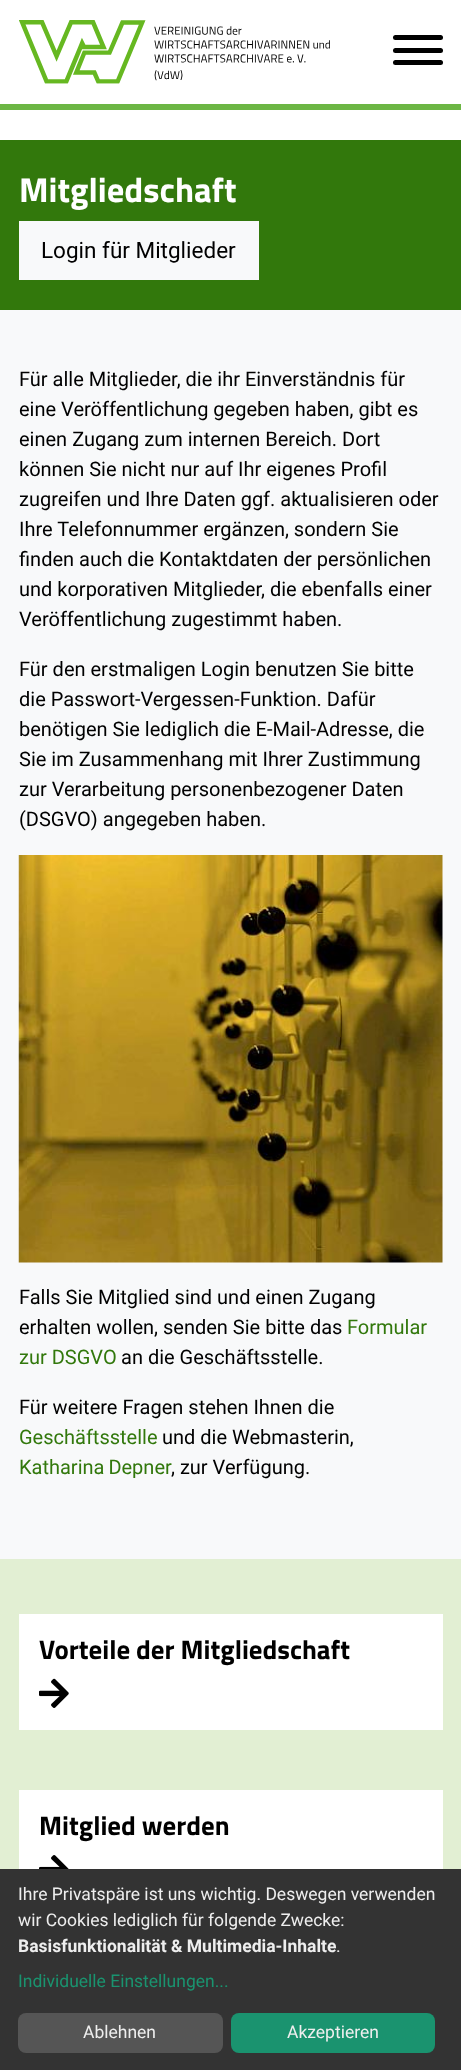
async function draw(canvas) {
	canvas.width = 461;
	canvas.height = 2070;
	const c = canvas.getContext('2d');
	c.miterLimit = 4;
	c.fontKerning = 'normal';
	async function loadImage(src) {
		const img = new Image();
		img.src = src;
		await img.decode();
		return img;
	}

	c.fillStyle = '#fff';
	c.fillRect(0, 0, 461, 2070);
	c.fillStyle = '#6cb644';
	c.fillRect(0, 104, 461, 6);
	c.drawImage(await loadImage('img1.png'), 19, 20, 311, 64);
	c.fillStyle = '#000';
	c.beginPath();
	c.roundRect(393, 48, 50, 5, 2.5);
	c.fill();
	c.beginPath();
	c.roundRect(393, 35, 50, 5, 2.5);
	c.fill();
	c.beginPath();
	c.roundRect(393, 60, 50, 5, 2.5);
	c.fill();
	c.fillStyle = '#32780c';
	c.fillRect(0, 140, 461, 170);
	c.font = 'bold 34.5px Titillium Web';
	c.fillStyle = '#fff';
	c.fillText('Mitgliedschaft', 19, 202);
	c.fillStyle = '#f8f9fa';
	c.fillRect(19, 221, 240, 59);
	c.font = '22.5px Roboto';
	c.fillStyle = '#000';
	c.fillText('Login für Mitglieder', 41, 258);
	c.fillStyle = '#f8f9fa';
	c.fillRect(0, 310, 461, 1249);
	c.font = '20px Roboto';
	c.fillStyle = '#000';
	for (const [text, x, y] of [
		['Für alle Mitglieder, die ihr Einverständnis für', 19, 386],
		['eine Veröffentlichung gegeben haben, gibt es', 19, 416],
		['einen Zugang zum internen Bereich. Dort', 19, 446],
		['können Sie nicht nur auf Ihr eigenes Profil', 19, 476],
		['zugreifen und Ihre Daten ggf. aktualisieren oder', 19, 506],
		['Ihre Telefonnummer ergänzen, sondern Sie', 19, 536],
		['finden auch die Kontaktdaten der persönlichen', 19, 566],
		['und korporativen Mitglieder, die ebenfalls einer', 19, 596],
		['Veröffentlichung zugestimmt haben.', 19, 626],
		['Für den erstmaligen Login benutzen Sie bitte', 19, 676],
		['die Passwort-Vergessen-Funktion. Dafür', 19, 706],
		['benötigen Sie lediglich die E-Mail-Adresse, die', 19, 736],
		['Sie im Zusammenhang mit Ihrer Zustimmung', 19, 766],
		['zur Verarbeitung personenbezogener Daten', 19, 796],
		['(DSGVO) angegeben haben.', 19, 826],
	]) {
		c.fillText(text, x, y);
	}
	c.drawImage(await loadImage('img2.png'), 18, 855, 425, 408);
	c.fillText('Falls Sie Mitglied sind und einen Zugang', 19, 1304);
	c.fillText('erhalten wollen, senden Sie bitte das', 19, 1334);
	c.fillStyle = '#32780c';
	c.fillText('Formular', 347, 1334);
	c.fillText('zur DSGVO', 19, 1364);
	c.fillStyle = '#000';
	c.fillText('an die Geschäftsstelle.', 121, 1364);
	c.fillText('Für weitere Fragen stehen Ihnen die', 19, 1414);
	c.fillStyle = '#32780c';
	c.fillText('Geschäftsstelle', 19, 1444);
	c.fillStyle = '#000';
	c.fillText('und die Webmasterin,', 162, 1444);
	c.wordSpacing = '-1px';
	c.fillStyle = '#32780c';
	c.fillText('Katharina Depner', 19, 1474);
	c.wordSpacing = '0px';
	c.fillStyle = '#000';
	c.fillText(', zur Verfügung.', 171, 1474);
	c.fillStyle = '#e2efd3';
	c.fillRect(0, 1559, 461, 310);
	c.fillStyle = '#fff';
	c.fillRect(19, 1614, 424, 116);
	c.font = 'bold 26.9px Titillium Web';
	c.fillStyle = '#000';
	c.fillText('Vorteile der Mitgliedschaft', 39, 1659);
	c.drawImage(await loadImage('img3.png'), 39, 1678, 30, 30);
	c.fillStyle = '#fff';
	c.fillRect(19, 1790, 424, 79);
	c.fillStyle = '#000';
	c.fillText('Mitglied werden', 39, 1835);
	c.drawImage(await loadImage('img4.png'), 39, 1855, 30, 14);
	c.fillStyle = '#333';
	c.fillRect(0, 1869, 461, 201);
	c.font = '17.5px Roboto';
	c.fillStyle = '#eee';
	c.fillText('Ihre Privatspäre ist uns wichtig. Deswegen verwenden', 18, 1900);
	c.fillText('wir Cookies lediglich für folgende Zwecke:', 18, 1926);
	c.font = 'bold 17.5px Roboto';
	c.fillText('Basisfunktionalität & Multimedia-Inhalte', 18, 1952);
	c.font = '17.5px Roboto';
	c.fillText('.', 336, 1952);
	c.fillStyle = '#1a936f';
	c.fillText('Individuelle Einstellungen...', 18, 1987);
	c.fillStyle = '#555';
	c.beginPath();
	c.roundRect(18, 2013, 205, 40, 8);
	c.fill();
	c.fillStyle = '#eee';
	c.fillText('Ablehnen', 83, 2038);
	c.fillStyle = '#1a936f';
	c.beginPath();
	c.roundRect(231, 2013, 204, 40, 8);
	c.fill();
	c.fillStyle = '#eee';
	c.fillText('Akzeptieren', 287, 2038);
}

draw(document.querySelector('canvas'));
